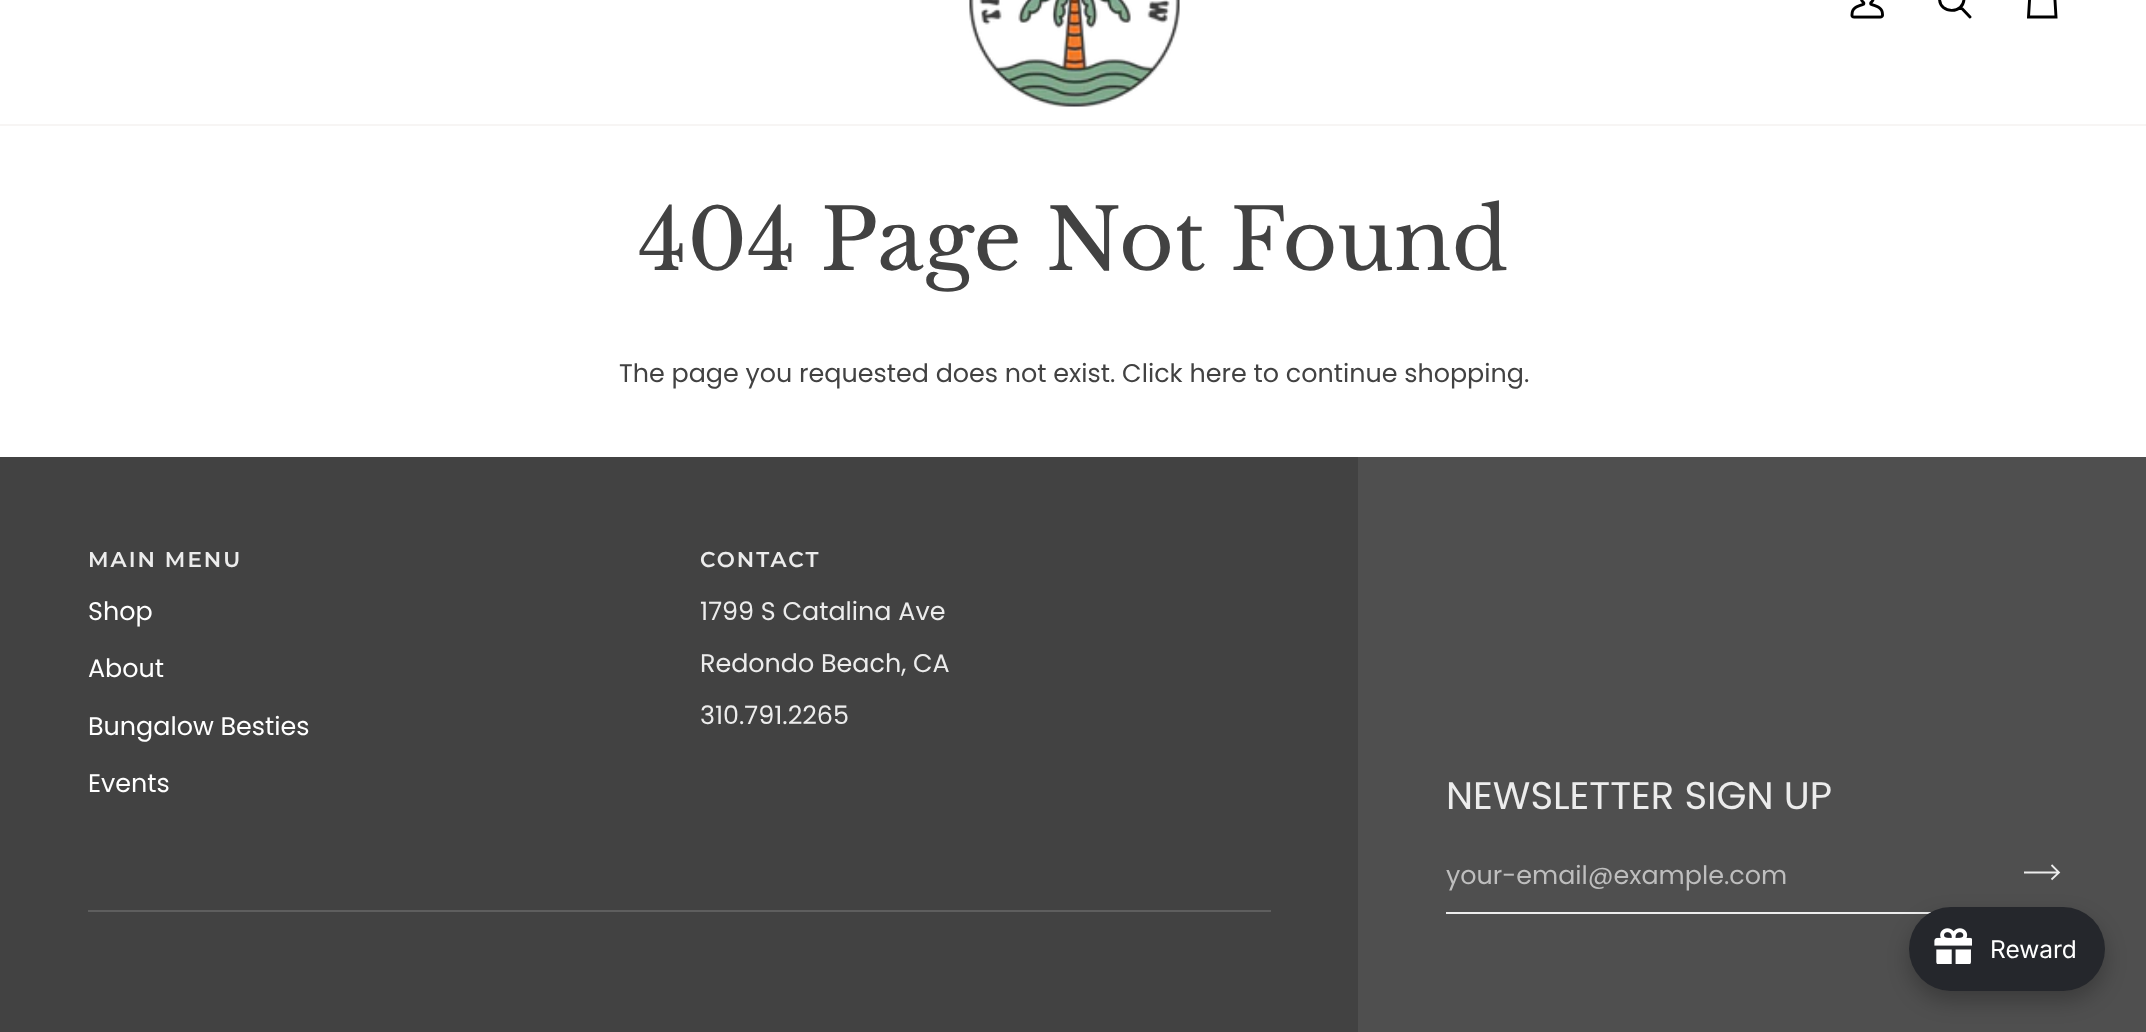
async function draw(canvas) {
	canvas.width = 2146;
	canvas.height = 1032;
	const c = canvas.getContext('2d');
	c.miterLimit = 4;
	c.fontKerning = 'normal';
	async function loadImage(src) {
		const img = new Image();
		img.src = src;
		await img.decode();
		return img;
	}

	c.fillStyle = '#fff';
	c.fillRect(0, 0, 2146, 1032);
	c.fillStyle = '#f7f5f4';
	c.fillRect(0, 124, 2146, 2);
	c.drawImage(await loadImage('img1.png'), 969, 0, 211, 107);
	c.drawImage(await loadImage('img2.png'), 1850, 0, 34, 19);
	c.beginPath();
	c.moveTo(1964, -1.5);
	c.bezierCurveTo(1964, 14, 1940, 14.5, 1939.5, -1);
	c.bezierCurveTo(1938.5, -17, 1964, -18, 1964, -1.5);
	c.closePath();
	c.moveTo(1970, 17);
	c.lineTo(1960.5, 7);
	c.closePath();
	c.strokeStyle = '#000';
	c.lineWidth = 2.9;
	c.lineCap = 'round';
	c.lineJoin = 'round';
	c.stroke();
	c.beginPath();
	c.moveTo(2048.5, -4.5);
	c.lineTo(2048.5, -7.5);
	c.lineTo(2054.5, -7.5);
	c.lineTo(2056, 17);
	c.lineTo(2028.5, 17);
	c.lineTo(2030, -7.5);
	c.lineTo(2036, -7.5);
	c.bezierCurveTo(2036, -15.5, 2048.5, -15.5, 2048.5, -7.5);
	c.lineTo(2036, -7.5);
	c.lineTo(2036, -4.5);
	c.lineCap = 'butt';
	c.lineJoin = 'miter';
	c.stroke();
	c.font = '84px Libre Baskerville';
	c.fillStyle = '#424242';
	c.fillText('404 Page Not Found', 638, 270);
	c.font = '25.4px Poppins';
	c.fillText('The page you requested does not exist. Click here to continue shopping.', 619, 382);
	c.fillRect(0, 457, 1358, 575);
	c.letterSpacing = '2px';
	c.font = '600 21.5px Montserrat';
	c.fillStyle = '#ececec';
	c.fillText('MAIN MENU', 88, 567);
	c.letterSpacing = '0px';
	c.font = '25.4px Poppins';
	c.fillStyle = '#fff';
	for (const [text, x, y] of [
		['Shop', 88, 620],
		['About', 88, 677],
		['Bungalow Besties', 88, 735],
		['Events', 88, 792],
	]) {
		c.fillText(text, x, y);
	}
	c.letterSpacing = '2px';
	c.font = '600 21.5px Montserrat';
	c.fillStyle = '#ececec';
	c.fillText('CONTACT', 700, 567);
	c.letterSpacing = '0px';
	c.font = '25.4px Poppins';
	for (const [text, x, y] of [
		['1799 S Catalina Ave', 700, 620],
		['Redondo Beach, CA', 700, 672],
		['310.791.2265', 700, 724],
	]) {
		c.fillText(text, x, y);
	}
	c.fillStyle = '#5e5e5e';
	c.fillRect(88, 910, 1183, 2);
	c.fillStyle = '#4f4f4f';
	c.fillRect(1358, 457, 788, 575);
	c.font = '38.5px Poppins';
	c.fillStyle = '#ececec';
	c.fillText('NEWSLETTER SIGN UP', 1446, 809);
	c.fillStyle = '#ededed';
	c.fillRect(1446, 912, 485, 2);
	c.font = '25.4px Poppins';
	c.fillStyle = '#bebebe';
	c.fillText('your-email@example.com', 1446, 884);
	c.beginPath();
	c.moveTo(2051.5, 865);
	c.lineTo(2059, 872.5);
	c.lineTo(2051.5, 879.5);
	c.moveTo(2024, 872.5);
	c.lineTo(2059, 872.5);
	c.strokeStyle = '#ededed';
	c.lineWidth = 1.8;
	c.stroke();
	c.fillStyle = '#00000040';
	c.filter = 'blur(10.5px)';
	c.beginPath();
	c.roundRect(1909, 917, 196, 84, 42);
	c.fill();
	c.filter = 'none';
	c.fillStyle = '#25272c';
	c.beginPath();
	c.roundRect(1909, 907, 196, 84, 42);
	c.fill();
	c.drawImage(await loadImage('img3.png'), 1934, 928, 38, 36);
	c.font = '24.5px Inter';
	c.fillStyle = '#fff';
	c.fillText('Reward', 1990, 958);
}

draw(document.querySelector('canvas'));
